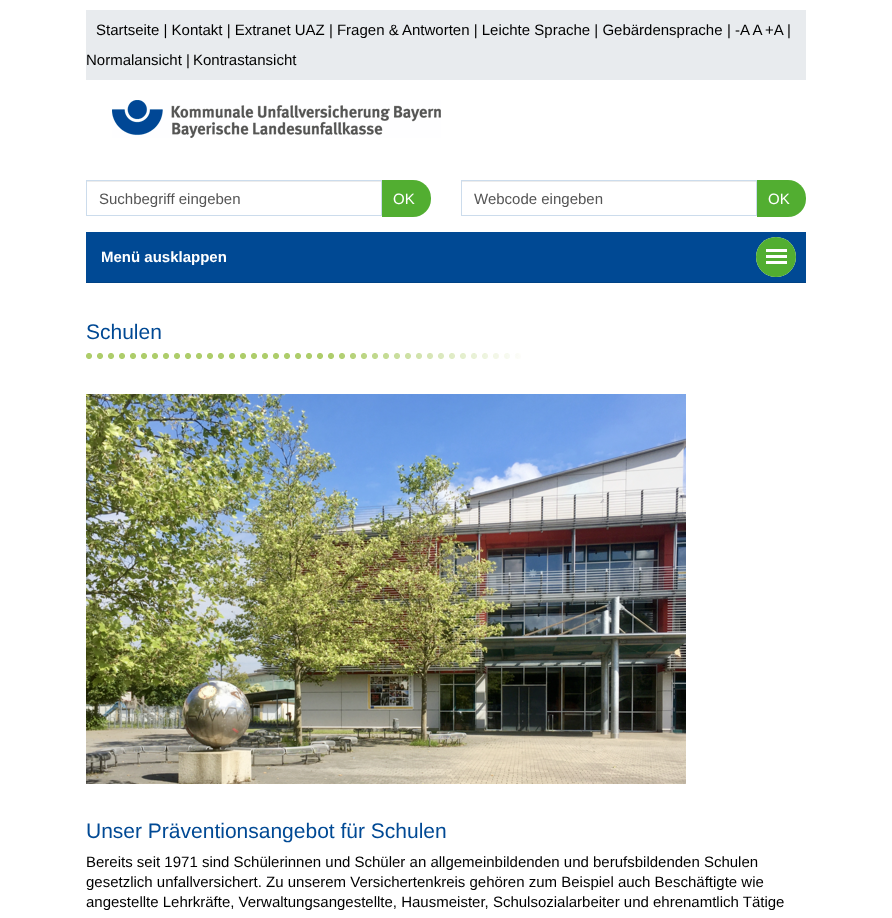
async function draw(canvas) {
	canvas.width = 892;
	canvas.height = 918;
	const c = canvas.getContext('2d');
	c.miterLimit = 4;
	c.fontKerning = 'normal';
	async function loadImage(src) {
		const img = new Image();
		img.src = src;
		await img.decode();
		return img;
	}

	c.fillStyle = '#fff';
	c.fillRect(0, 0, 892, 918);
	c.fillStyle = '#e8ebee';
	c.fillRect(86, 10, 720, 70);
	c.font = '15px Liberation Sans';
	c.fillStyle = '#000';
	for (const [text, x, y] of [
		['Startseite | Kontakt | Extranet UAZ | Fragen & Antworten | Leichte Sprache | Gebärdensprache', 96, 35],
		['| -A A', 727, 35],
		['+A |', 765, 35],
		['Normalansicht |', 86, 65],
		['Kontrastansicht', 193, 65],
	]) {
		c.fillText(text, x, y);
	}
	c.drawImage(await loadImage('img1.png'), 112, 100, 329, 38);
	c.fillStyle = '#ececec';
	c.fillRect(87, 181, 294, 1);
	c.strokeStyle = '#ccdcec';
	c.strokeRect(86.5, 180.5, 295, 35);
	c.fillStyle = '#555';
	c.fillText('Suchbegriff eingeben', 99, 204);
	c.fillStyle = '#52ae31';
	c.beginPath();
	c.roundRect(382, 180, 49, 37, [0, 18, 18, 0]);
	c.fill();
	c.fillStyle = '#fff';
	c.fillText('OK', 393, 204);
	c.fillStyle = '#ececec';
	c.fillRect(462, 181, 294, 1);
	c.strokeRect(461.5, 180.5, 295, 35);
	c.fillStyle = '#555';
	c.fillText('Webcode eingeben', 474, 204);
	c.fillStyle = '#52ae31';
	c.beginPath();
	c.roundRect(757, 180, 49, 37, [0, 18, 18, 0]);
	c.fill();
	c.fillStyle = '#fff';
	c.fillText('OK', 768, 204);
	c.fillStyle = '#004994';
	c.fillRect(86, 232, 720, 50);
	c.fillStyle = '#004285';
	c.fillRect(86, 282, 720, 1);
	c.font = 'bold 15px Liberation Sans';
	c.fillStyle = '#fff';
	c.fillText('Menü ausklappen', 101, 262);
	c.filter = 'blur(0.5px)';
	c.beginPath();
	c.roundRect(756, 237, 40, 40, 20);
	c.fill();
	c.filter = 'none';
	c.fillStyle = '#52ae31';
	c.beginPath();
	c.arc(776, 257, 20, 0, 2 * Math.PI);
	c.fill();
	for (const [x, y, w, h, color] of [
		[766, 249, 21, 3, '#fff'],
		[766, 255, 21, 3, '#fff'],
		[766, 261, 21, 3, '#fff'],
	]) {
		c.fillStyle = color;
		c.fillRect(x, y, w, h);
	}
	c.font = '21px Liberation Sans';
	c.fillStyle = '#004994';
	c.fillText('Schulen', 86, 339);
	c.drawImage(await loadImage('img2.png'), 86, 353, 435, 6);
	c.drawImage(await loadImage('img3.png'), 86, 394, 600, 390);
	c.fillText('Unser Präventionsangebot für Schulen', 86, 838);
	c.font = '15px Liberation Sans';
	c.fillStyle = '#000';
	for (const [text, x, y] of [
		['Bereits seit 1971 sind Schülerinnen und Schüler an allgemeinbildenden und berufsbildenden Schulen', 86, 867],
		['gesetzlich unfallversichert. Zu unserem Versichertenkreis gehören zum Beispiel auch Beschäftigte wie', 86, 887],
		['angestellte Lehrkräfte, Verwaltungsangestellte, Hausmeister, Schulsozialarbeiter und ehrenamtlich Tätige', 86, 907],
	]) {
		c.fillText(text, x, y);
	}
}

draw(document.querySelector('canvas'));
